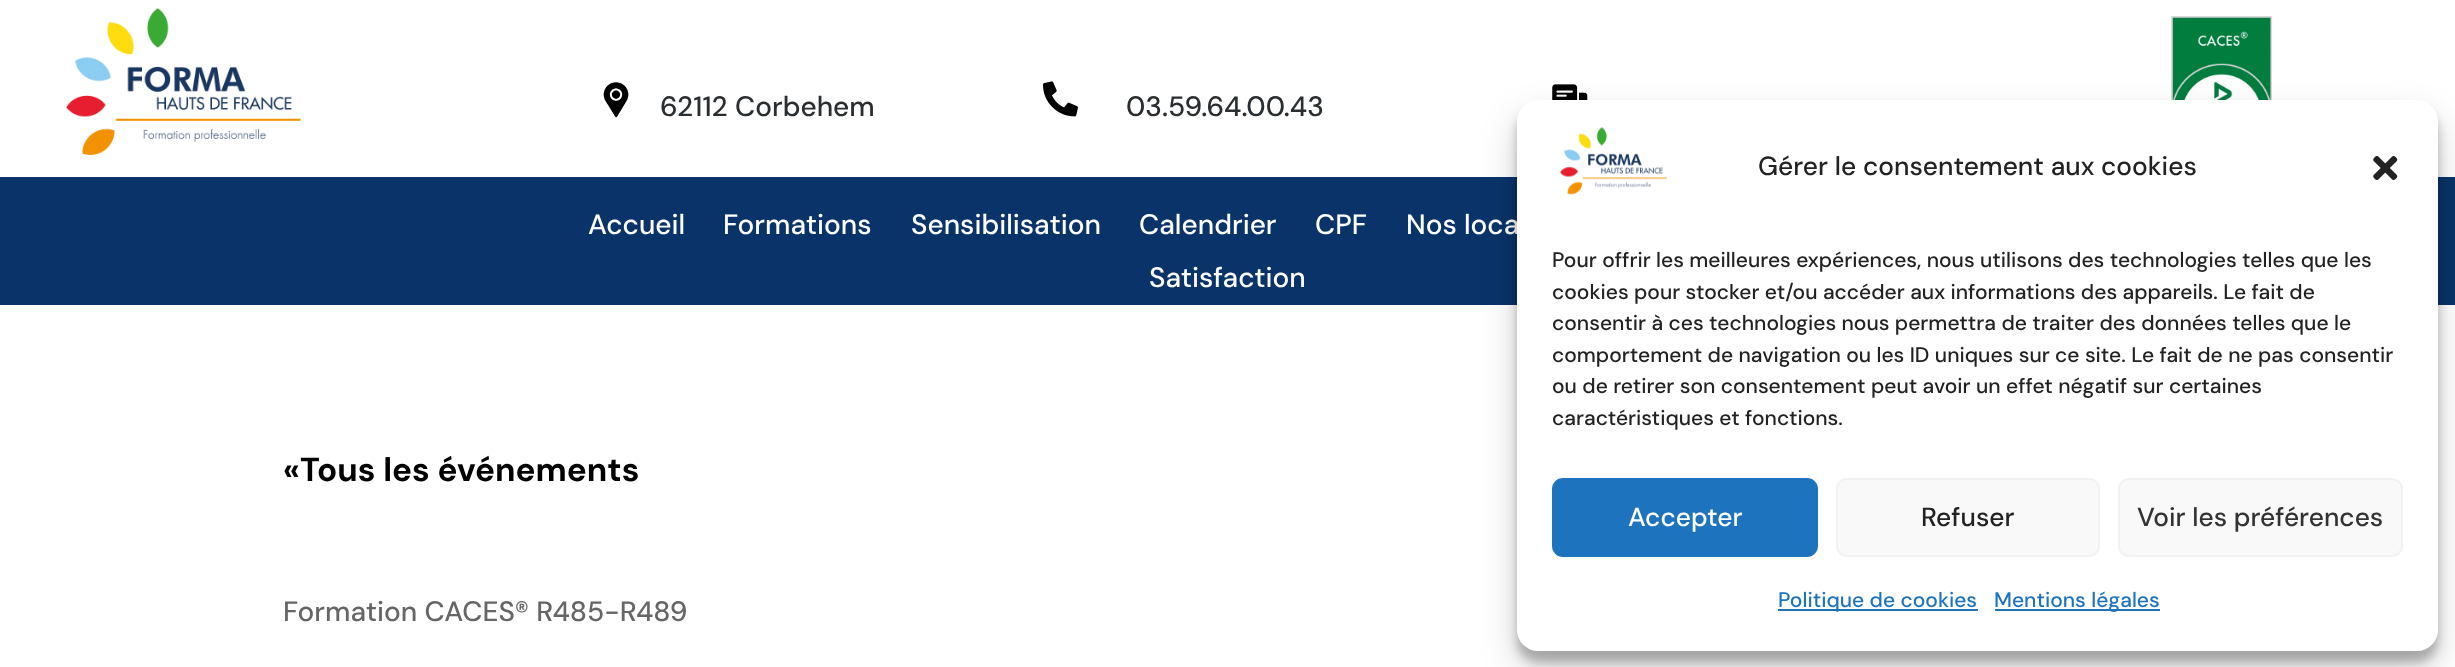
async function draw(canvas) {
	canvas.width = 2455;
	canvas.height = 667;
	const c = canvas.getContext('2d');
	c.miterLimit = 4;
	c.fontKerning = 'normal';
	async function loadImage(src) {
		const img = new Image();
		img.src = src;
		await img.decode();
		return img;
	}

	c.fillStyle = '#fff';
	c.fillRect(0, 0, 2455, 667);
	c.drawImage(await loadImage('img1.png'), 66, 7, 235, 148);
	c.drawImage(await loadImage('img2.png'), 1552, 84, 36, 16);
	c.drawImage(await loadImage('img3.png'), 2171, 16, 101, 84);
	c.drawImage(await loadImage('img4.png'), 603, 82, 26, 36);
	c.font = '500 28px DM Sans';
	c.fillStyle = '#2a2e30';
	c.fillText('62112 Corbehem', 660, 116);
	c.drawImage(await loadImage('img5.png'), 1043, 81, 35, 36);
	c.fillText('03.59.64.00.43', 1126, 116);
	c.fillStyle = '#0a3469';
	c.fillRect(0, 177, 2455, 128);
	c.fillStyle = '#fff';
	for (const [text, x, y] of [
		['Accueil', 588, 234],
		['Formations', 723, 234],
		['Sensibilisation', 911, 234],
		['Calendrier', 1139, 234],
		['CPF', 1315, 234],
		['Nos loca', 1406, 234],
		['Satisfaction', 1149, 287],
	]) {
		c.fillText(text, x, y);
	}
	c.font = 'bold 33.25px DM Sans';
	c.fillStyle = '#000';
	c.fillText('«Tous les événements', 283, 481);
	c.font = '500 28px DM Sans';
	c.fillStyle = '#666';
	c.fillText('Formation CACES® R485-R489', 283, 621);
	c.fillStyle = '#0000003b';
	c.filter = 'blur(5px)';
	c.beginPath();
	c.roundRect(1517, 110, 921, 552, 21);
	c.fill();
	c.filter = 'none';
	c.fillStyle = '#00000030';
	c.filter = 'blur(17.5px)';
	c.beginPath();
	c.roundRect(1517, 117, 921, 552, 21);
	c.fill();
	c.filter = 'none';
	c.fillStyle = '#fff';
	c.beginPath();
	c.roundRect(1517, 100, 921, 551, 21);
	c.fill();
	c.drawImage(await loadImage('img6.png'), 1560, 127, 107, 68);
	c.font = '500 26.25px DM Sans';
	c.fillStyle = '#222';
	c.fillText('Gérer le consentement aux cookies', 1758, 175);
	c.drawImage(await loadImage('img7.png'), 2373, 156, 25, 24);
	c.font = '500 21px DM Sans';
	for (const [text, x, y] of [
		['Pour offrir les meilleures expériences, nous utilisons des technologies telles que les', 1552, 267],
		['cookies pour stocker et/ou accéder aux informations des appareils. Le fait de', 1552, 299],
		['consentir à ces technologies nous permettra de traiter des données telles que le', 1552, 330],
		['comportement de navigation ou les ID uniques sur ce site. Le fait de ne pas consentir', 1552, 362],
		['ou de retirer son consentement peut avoir un effet négatif sur certaines', 1552, 393],
		['caractéristiques et fonctions.', 1552, 425],
	]) {
		c.fillText(text, x, y);
	}
	c.fillStyle = '#1e73be';
	c.beginPath();
	c.roundRect(1553, 479, 264, 77, 10);
	c.fill();
	c.strokeStyle = '#1e73be';
	c.lineWidth = 2;
	c.stroke();
	c.font = '500 26.25px DM Sans';
	c.fillStyle = '#fff';
	c.fillText('Accepter', 1628, 526);
	c.fillStyle = '#f9f9f9';
	c.beginPath();
	c.roundRect(1837, 479, 262, 77, 10);
	c.fill();
	c.strokeStyle = '#f2f2f2';
	c.stroke();
	c.fillStyle = '#222';
	c.fillText('Refuser', 1921, 526);
	c.fillStyle = '#f9f9f9';
	c.beginPath();
	c.roundRect(2119, 479, 283, 77, 10);
	c.fill();
	c.stroke();
	c.fillStyle = '#333';
	c.fillText('Voir les préférences', 2137, 526);
	c.fillStyle = '#1e73be';
	c.fillRect(1778, 609, 200, 2);
	c.font = '500 21px DM Sans';
	c.fillText('Politique de cookies', 1778, 607);
	c.fillRect(1995, 609, 165, 2);
	c.fillText('Mentions légales', 1994, 607);
}

draw(document.querySelector('canvas'));
